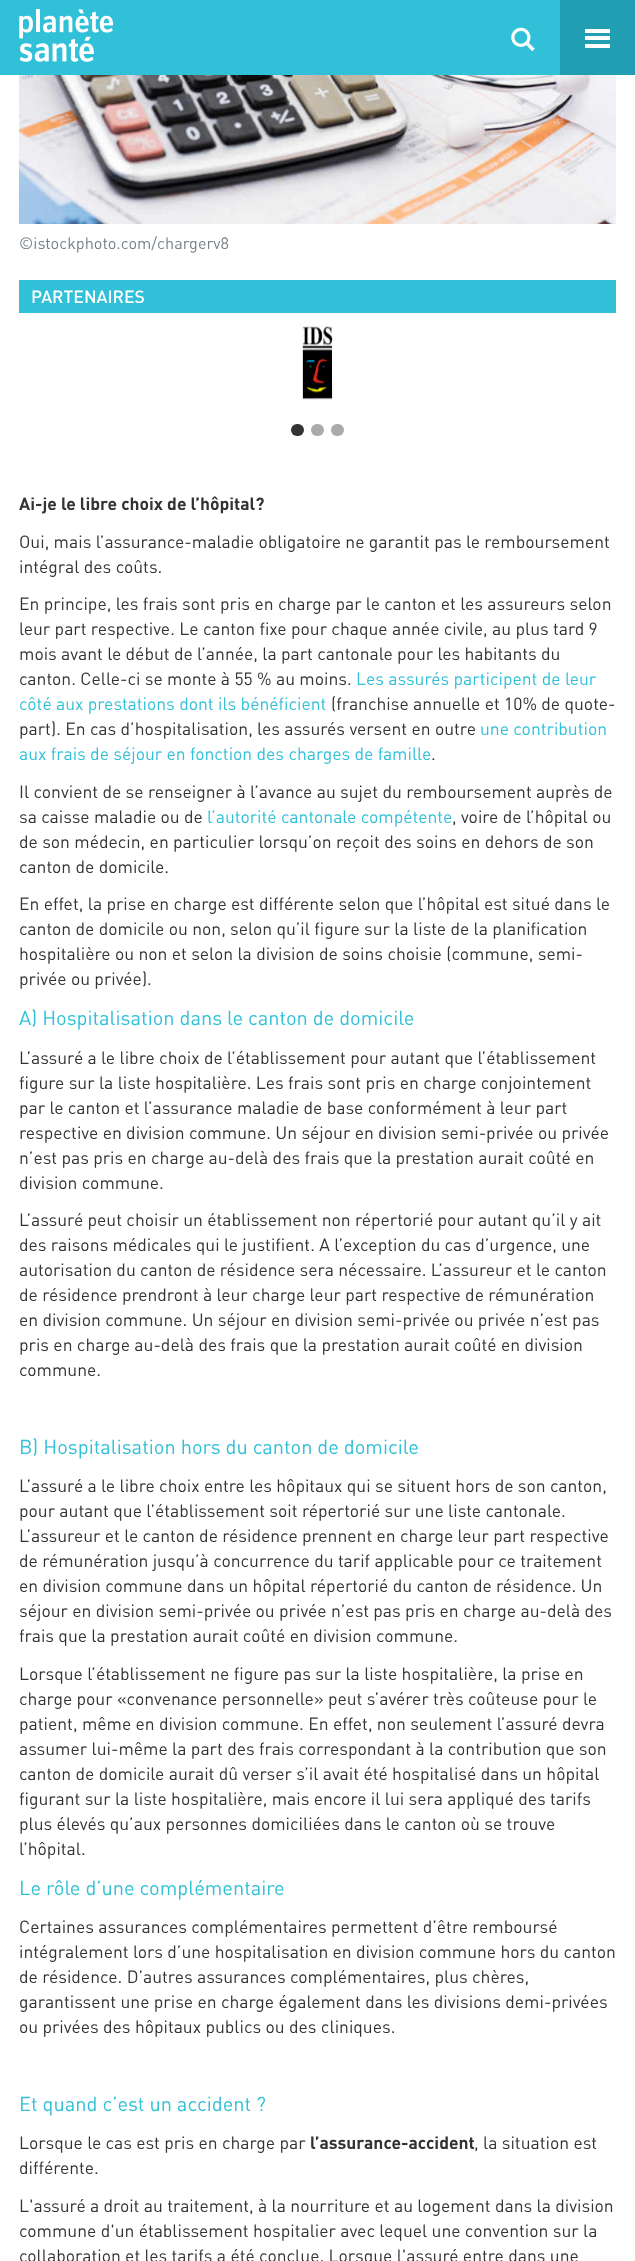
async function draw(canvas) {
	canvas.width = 635;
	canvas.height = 2261;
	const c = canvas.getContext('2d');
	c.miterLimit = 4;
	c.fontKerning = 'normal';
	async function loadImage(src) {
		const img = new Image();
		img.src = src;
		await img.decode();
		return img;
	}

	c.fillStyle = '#fff';
	c.fillRect(0, 0, 635, 2261);
	c.fillStyle = '#30c0d8';
	c.fillRect(0, 0, 560, 75);
	c.drawImage(await loadImage('img1.png'), 19, 9, 95, 53);
	c.drawImage(await loadImage('img2.png'), 511, 27, 24, 25);
	for (const [x, y, w, h, color] of [
		[560, 0, 75, 75, '#229eb3'],
		[585, 36, 25, 4, '#fff'],
		[585, 29, 25, 4, '#fff'],
		[585, 44, 25, 4, '#fff'],
	]) {
		c.fillStyle = color;
		c.fillRect(x, y, w, h);
	}
	c.drawImage(await loadImage('img3.png'), 18, 75, 599, 149);
	c.font = '16.25px DIN';
	c.fillStyle = '#76808a';
	c.fillText('©istockphoto.com/chargerv8', 19, 249);
	c.fillStyle = '#30c0d8';
	c.fillRect(19, 280, 597, 33);
	c.font = '500 17.5px DIN';
	c.fillStyle = '#fff';
	c.fillText('PARTENAIRES', 31, 303);
	c.drawImage(await loadImage('img4.png'), 302, 326, 31, 74);
	c.fillStyle = '#333';
	c.beginPath();
	c.roundRect(291, 424, 13, 12, 6);
	c.fill();
	c.fillStyle = '#aaa';
	c.beginPath();
	c.roundRect(311, 424, 13, 12, 6);
	c.fill();
	c.beginPath();
	c.roundRect(331, 424, 13, 12, 6);
	c.fill();
	c.font = 'bold 17.5px DIN';
	c.fillStyle = '#333';
	c.fillText('Ai-je le libre choix de l’hôpital?', 19, 510);
	c.font = '17.5px DIN';
	for (const [text, x, y] of [
		['Oui, mais l’assurance-maladie obligatoire ne garantit pas le remboursement', 19, 548],
		['intégral des coûts.', 19, 573],
		['En principe, les frais sont pris en charge par le canton et les assureurs selon', 19, 610],
		['leur part respective. Le canton fixe pour chaque année civile, au plus tard 9', 19, 635],
		['mois avant le début de l’année, la part cantonale pour les habitants du', 19, 660],
		['canton. Celle-ci se monte à 55 % au moins.', 19, 685],
	]) {
		c.fillText(text, x, y);
	}
	c.fillStyle = '#30c0d8';
	c.fillText('Les assurés participent de leur', 356, 685);
	c.fillText('côté aux prestations dont ils bénéficient', 19, 710);
	c.fillStyle = '#333';
	c.fillText('(franchise annuelle et 10% de quote-', 331, 710);
	c.fillText('part). En cas d’hospitalisation, les assurés versent en outre', 19, 735);
	c.fillStyle = '#30c0d8';
	c.fillText('une contribution', 480, 735);
	c.fillText('aux frais de séjour en fonction des charges de famille', 19, 760);
	c.fillStyle = '#333';
	for (const [text, x, y] of [
		['.', 431, 760],
		['Il convient de se renseigner à l’avance au sujet du remboursement auprès de', 19, 798],
		['sa caisse maladie ou de', 19, 823],
	]) {
		c.fillText(text, x, y);
	}
	c.fillStyle = '#30c0d8';
	c.fillText('l’autorité cantonale compétente', 207, 823);
	c.fillStyle = '#333';
	for (const [text, x, y] of [
		[', voire de l’hôpital ou', 452, 823],
		['de son médecin, en particulier lorsqu’on reçoit des soins en dehors de son', 19, 848],
		['canton de domicile.', 19, 873],
		['En effet, la prise en charge est différente selon que l’hôpital est situé dans le', 19, 910],
		['canton de domicile ou non, selon qu’il figure sur la liste de la planification', 19, 935],
		['hospitalière ou non et selon la division de soins choisie (commune, semi-', 19, 960],
		['privée ou privée).', 19, 985],
	]) {
		c.fillText(text, x, y);
	}
	c.font = '20px DIN';
	c.fillStyle = '#30c0d8';
	c.fillText('A) Hospitalisation dans le canton de domicile', 19, 1025);
	c.font = '17.5px DIN';
	c.fillStyle = '#333';
	for (const [text, x, y] of [
		['L’assuré a le libre choix de l’établissement pour autant que l’établissement', 19, 1064],
		['figure sur la liste hospitalière. Les frais sont pris en charge conjointement', 19, 1089],
		['par le canton et l’assurance maladie de base conformément à leur part', 19, 1114],
		['respective en division commune. Un séjour en division semi-privée ou privée', 19, 1139],
		['n’est pas pris en charge au-delà des frais que la prestation aurait coûté en', 19, 1164],
		['division commune.', 19, 1189],
		['L’assuré peut choisir un établissement non répertorié pour autant qu’il y ait', 19, 1226],
		['des raisons médicales qui le justifient. A l’exception du cas d’urgence, une', 19, 1251],
		['autorisation du canton de résidence sera nécessaire. L’assureur et le canton', 19, 1276],
		['de résidence prendront à leur charge leur part respective de rémunération', 19, 1301],
		['en division commune. Un séjour en division semi-privée ou privée n’est pas', 19, 1326],
		['pris en charge au-delà des frais que la prestation aurait coûté en division', 19, 1351],
		['commune.', 19, 1376],
	]) {
		c.fillText(text, x, y);
	}
	c.font = '20px DIN';
	c.fillStyle = '#30c0d8';
	c.fillText('B) Hospitalisation hors du canton de domicile', 19, 1454);
	c.font = '17.5px DIN';
	c.fillStyle = '#333';
	for (const [text, x, y] of [
		['L’assuré a le libre choix entre les hôpitaux qui se situent hors de son canton,', 19, 1492],
		['pour autant que l’établissement soit répertorié sur une liste cantonale.', 19, 1517],
		['L’assureur et le canton de résidence prennent en charge leur part respective', 19, 1542],
		['de rémunération jusqu’à concurrence du tarif applicable pour ce traitement', 19, 1567],
		['en division commune dans un hôpital répertorié du canton de résidence. Un', 19, 1592],
		['séjour en division semi-privée ou privée n’est pas pris en charge au-delà des', 19, 1617],
		['frais que la prestation aurait coûté en division commune.', 19, 1642],
		['Lorsque l’établissement ne figure pas sur la liste hospitalière, la prise en', 19, 1680],
		['charge pour «convenance personnelle» peut s’avérer très coûteuse pour le', 19, 1705],
		['patient, même en division commune. En effet, non seulement l’assuré devra', 19, 1730],
		['assumer lui-même la part des frais correspondant à la contribution que son', 19, 1755],
		['canton de domicile aurait dû verser s’il avait été hospitalisé dans un hôpital', 19, 1780],
		['figurant sur la liste hospitalière, mais encore il lui sera appliqué des tarifs', 19, 1805],
		['plus élevés qu’aux personnes domiciliées dans le canton où se trouve', 19, 1830],
		['l’hôpital.', 19, 1855],
	]) {
		c.fillText(text, x, y);
	}
	c.font = '20px DIN';
	c.fillStyle = '#30c0d8';
	c.fillText('Le rôle d’une complémentaire', 19, 1895);
	c.font = '17.5px DIN';
	c.fillStyle = '#333';
	for (const [text, x, y] of [
		['Certaines assurances complémentaires permettent d’être remboursé', 19, 1933],
		['intégralement lors d’une hospitalisation en division commune hors du canton', 19, 1958],
		['de résidence. D’autres assurances complémentaires, plus chères,', 19, 1983],
		['garantissent une prise en charge également dans les divisions demi-privées', 19, 2008],
		['ou privées des hôpitaux publics ou des cliniques.', 19, 2033],
	]) {
		c.fillText(text, x, y);
	}
	c.font = '20px DIN';
	c.fillStyle = '#30c0d8';
	c.fillText('Et quand c’est un accident ?', 19, 2111);
	c.font = '17.5px DIN';
	c.fillStyle = '#333';
	c.fillText('Lorsque le cas est pris en charge par', 19, 2149);
	c.font = 'bold 17.5px DIN';
	c.fillText('l’assurance-accident', 310, 2149);
	c.font = '17.5px DIN';
	for (const [text, x, y] of [
		[', la situation est', 474, 2149],
		['différente.', 19, 2174],
		['L\'assuré a droit au traitement, à la nourriture et au logement dans la division', 19, 2212],
		['commune d\'un établissement hospitalier avec lequel une convention sur la', 19, 2237],
		['collaboration et les tarifs a été conclue. Lorsque l\'assuré entre dans une', 19, 2262],
	]) {
		c.fillText(text, x, y);
	}
}

draw(document.querySelector('canvas'));
